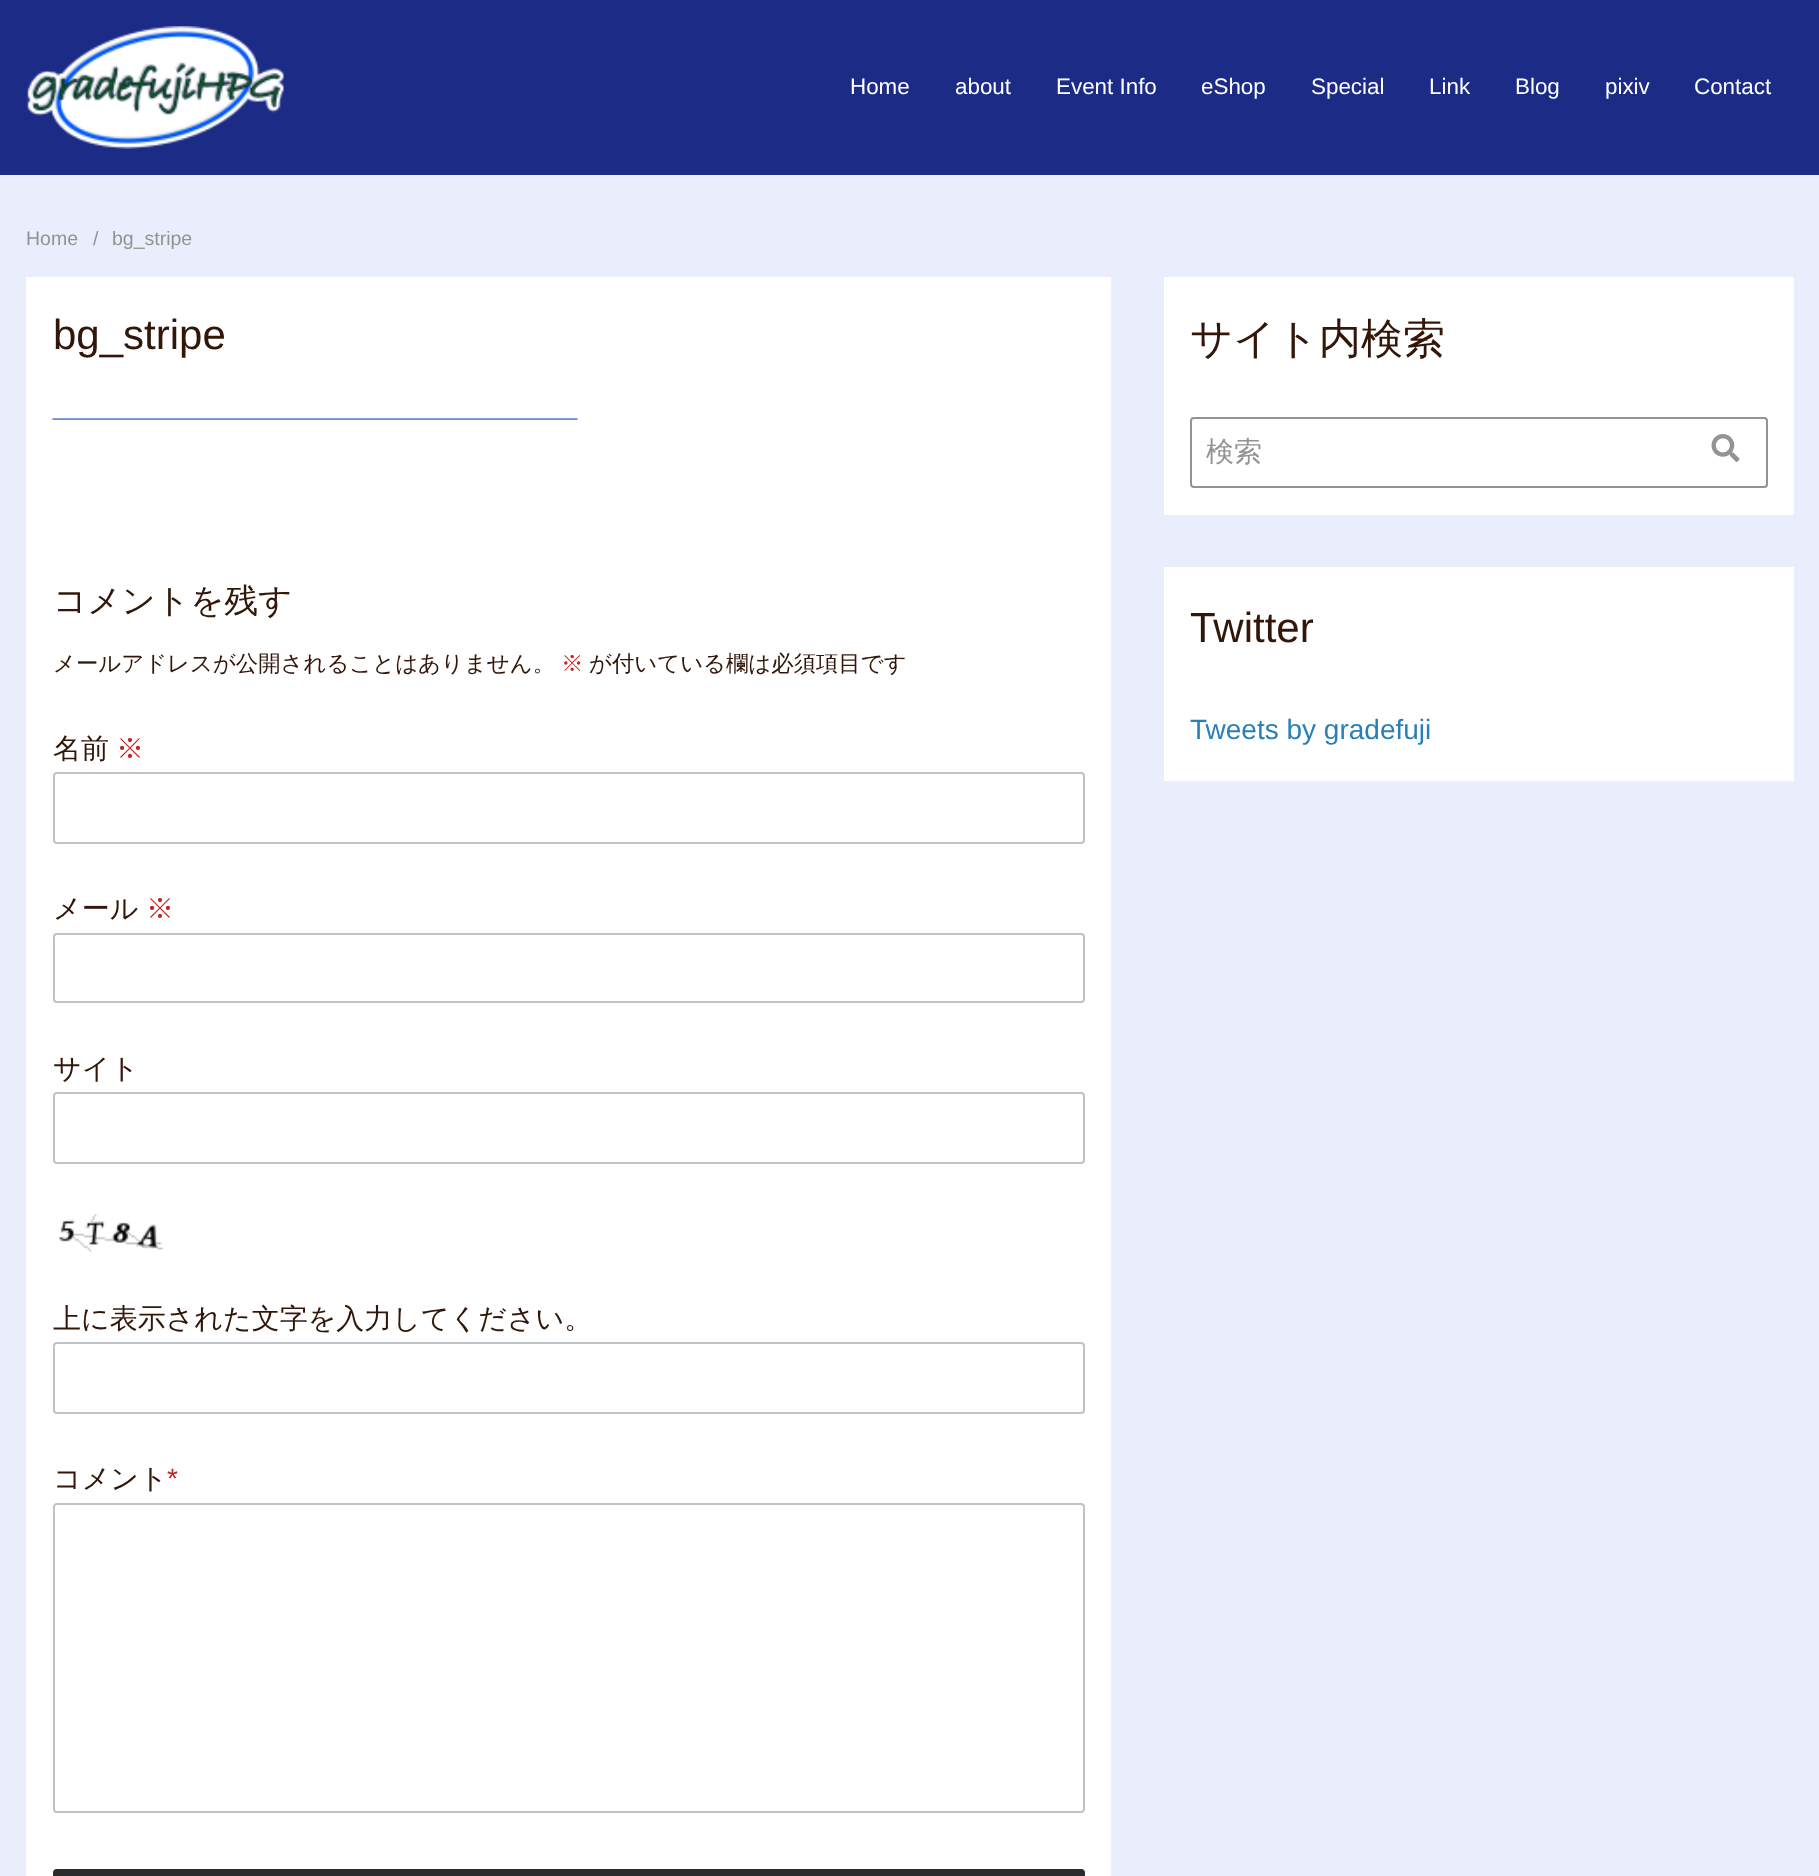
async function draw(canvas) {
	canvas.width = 1819;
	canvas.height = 1876;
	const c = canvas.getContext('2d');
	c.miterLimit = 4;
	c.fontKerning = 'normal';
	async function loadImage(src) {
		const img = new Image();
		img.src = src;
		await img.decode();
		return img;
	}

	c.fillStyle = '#eaeefc';
	c.fillRect(0, 0, 1819, 1876);
	c.fillStyle = '#1c2c86';
	c.fillRect(0, 0, 1819, 175);
	c.drawImage(await loadImage('img1.png'), 27, 26, 257, 123);
	c.font = '22.4px Liberation Sans';
	c.fillStyle = '#fff';
	for (const [text, x, y] of [
		['Home', 850, 94],
		['about', 955, 94],
		['Event Info', 1056, 94],
		['eShop', 1201, 94],
		['Special', 1311, 94],
		['Link', 1429, 94],
		['Blog', 1515, 94],
		['pixiv', 1605, 94],
		['Contact', 1694, 94],
	]) {
		c.fillText(text, x, y);
	}
	c.font = '19.5px Liberation Sans';
	c.fillStyle = '#939393';
	for (const [text, x, y] of [
		['Home', 26, 245],
		['/', 93, 245],
		['bg_stripe', 112, 245],
	]) {
		c.fillText(text, x, y);
	}
	c.fillStyle = '#fff';
	c.fillRect(26, 277, 1085, 1599);
	c.font = '42px Liberation Sans';
	c.fillStyle = '#321608';
	c.fillText('bg_stripe', 53, 349);
	c.drawImage(await loadImage('img2.png'), 52, 418, 526, 2);
	c.font = '500 33.5px WenQuanYi Zen Hei';
	c.fillText('コメントを残す', 53, 612);
	c.font = '500 22.4px WenQuanYi Zen Hei';
	c.fillText('メールアドレスが公開されることはありません。', 53, 671);
	c.fillStyle = '#cd201f';
	c.fillText('※', 561, 671);
	c.fillStyle = '#321608';
	c.fillText('が付いている欄は必須項目です', 589, 671);
	c.font = '500 28px WenQuanYi Zen Hei';
	c.fillText('名前', 53, 758);
	c.fillStyle = '#cd201f';
	c.fillText('※', 116, 758);
	c.beginPath();
	c.roundRect(54, 773, 1030, 70, 3);
	c.strokeStyle = '#bdc3c7';
	c.lineWidth = 2;
	c.stroke();
	c.fillStyle = '#321608';
	c.fillText('メール', 53, 918);
	c.fillStyle = '#cd201f';
	c.fillText('※', 146, 918);
	c.beginPath();
	c.roundRect(54, 934, 1030, 68, 3);
	c.stroke();
	c.fillStyle = '#321608';
	c.fillText('サイト', 53, 1078);
	c.beginPath();
	c.roundRect(54, 1093, 1030, 70, 3);
	c.stroke();
	c.drawImage(await loadImage('img3.png'), 59, 1214, 105, 38);
	c.fillText('上に表示された文字を入力してください。', 53, 1328);
	c.beginPath();
	c.roundRect(54, 1343, 1030, 70, 3);
	c.stroke();
	c.fillText('コメント', 53, 1488);
	c.font = '28px Liberation Sans';
	c.fillStyle = '#cd201f';
	c.fillText('*', 167, 1488);
	c.beginPath();
	c.roundRect(54, 1504, 1030, 308, 3);
	c.stroke();
	c.fillStyle = '#292b2c';
	c.beginPath();
	c.roundRect(54, 1870, 1030, 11, 3);
	c.fill();
	c.strokeStyle = '#292b2c';
	c.stroke();
	c.fillStyle = '#fff';
	c.fillRect(1164, 277, 630, 238);
	c.font = '500 42px WenQuanYi Zen Hei';
	c.fillStyle = '#321608';
	c.fillText('サイト内検索', 1190, 353);
	c.beginPath();
	c.roundRect(1191, 418, 576, 69, 3);
	c.strokeStyle = '#939393';
	c.stroke();
	c.font = '500 28px WenQuanYi Zen Hei';
	c.fillStyle = '#939393';
	c.fillText('検索', 1206, 461);
	c.drawImage(await loadImage('img4.png'), 1711, 434, 29, 28);
	c.fillStyle = '#fff';
	c.fillRect(1164, 567, 630, 214);
	c.font = '42px Liberation Sans';
	c.fillStyle = '#321608';
	c.fillText('Twitter', 1190, 642);
	c.font = '28px Liberation Sans';
	c.fillStyle = '#2980b9';
	c.fillText('Tweets by gradefuji', 1190, 739);
}

draw(document.querySelector('canvas'));
